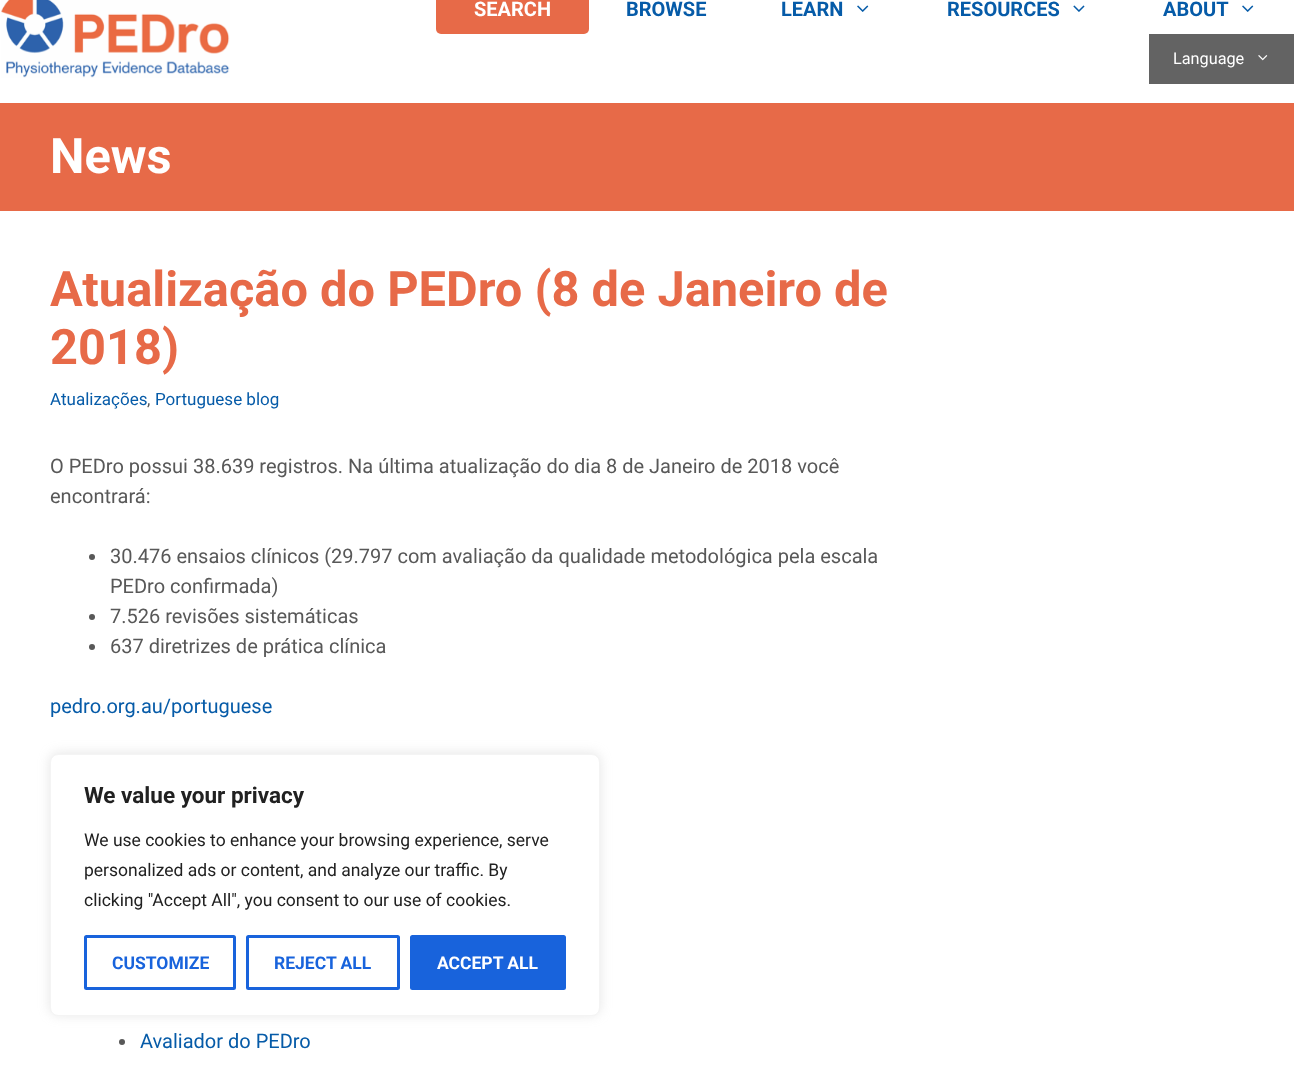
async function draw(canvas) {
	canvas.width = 1294;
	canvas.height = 1066;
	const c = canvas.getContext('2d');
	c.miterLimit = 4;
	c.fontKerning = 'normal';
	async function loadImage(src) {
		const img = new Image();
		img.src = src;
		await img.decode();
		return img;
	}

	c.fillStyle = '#fff';
	c.fillRect(0, 0, 1294, 1066);
	c.drawImage(await loadImage('img1.png'), 1, 0, 229, 78);
	c.fillStyle = '#e76a48';
	c.beginPath();
	c.roundRect(436, -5, 153, 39, 5);
	c.fill();
	c.font = 'bold 20px Roboto';
	c.fillStyle = '#fff';
	c.fillText('SEARCH', 474, 16);
	c.fillStyle = '#065ba8';
	c.fillText('BROWSE', 626, 16);
	c.fillText('LEARN', 781, 16);
	c.drawImage(await loadImage('img2.png'), 857, 5, 12, 7);
	c.fillText('RESOURCES', 947, 16);
	c.drawImage(await loadImage('img3.png'), 1073, 5, 12, 7);
	c.fillText('ABOUT', 1163, 16);
	c.drawImage(await loadImage('img2.png'), 1242, 5, 12, 7);
	c.fillStyle = '#636363';
	c.fillRect(1149, 34, 145, 50);
	c.font = '16.25px Roboto';
	c.fillStyle = '#fff';
	c.fillText('Language', 1173, 64);
	c.drawImage(await loadImage('img4.png'), 1258, 55, 10, 6);
	c.fillStyle = '#e76a48';
	c.fillRect(0, 103, 1294, 108);
	c.font = 'bold 48.75px Roboto';
	c.fillStyle = '#fff';
	c.fillText('News', 50, 173);
	c.fillStyle = '#e76a48';
	c.fillText('Atualização do PEDro (8 de Janeiro de', 50, 306);
	c.fillText('2018)', 50, 364);
	c.font = '17px Roboto';
	c.fillStyle = '#065ba8';
	c.fillText('Atualizações', 50, 405);
	c.fillStyle = '#585858';
	c.fillText(',', 147, 405);
	c.fillStyle = '#065ba8';
	c.fillText('Portuguese blog', 155, 405);
	c.font = '20px Roboto';
	c.fillStyle = '#585858';
	c.fillText('O PEDro possui 38.639 registros. Na última atualização do dia 8 de Janeiro de 2018 você', 50, 473);
	c.fillText('encontrará:', 50, 503);
	c.beginPath();
	c.arc(92, 557, 3, 0, 2 * Math.PI);
	c.fill();
	c.fillText('30.476 ensaios clínicos (29.797 com avaliação da qualidade metodológica pela escala', 110, 563);
	c.fillText('PEDro confirmada)', 110, 593);
	c.beginPath();
	c.arc(92, 617, 3, 0, 2 * Math.PI);
	c.fill();
	c.fillText('7.526 revisões sistemáticas', 110, 623);
	c.beginPath();
	c.arc(92, 647, 3, 0, 2 * Math.PI);
	c.fill();
	c.fillText('637 diretrizes de prática clínica', 110, 653);
	c.fillStyle = '#065ba8';
	c.fillText('pedro.org.au/portuguese', 50, 713);
	c.fillStyle = '#585858';
	c.beginPath();
	c.arc(122, 1042, 3, 0, 2 * Math.PI);
	c.fill();
	c.fillStyle = '#065ba8';
	c.fillText('Avaliador do PEDro', 140, 1048);
	c.fillStyle = '#acabab4d';
	c.filter = 'blur(6px)';
	c.beginPath();
	c.roundRect(50, 753, 550, 262, 8);
	c.fill();
	c.filter = 'none';
	c.fillStyle = '#fff';
	c.beginPath();
	c.roundRect(50.5, 754.5, 549, 261, 7.5);
	c.fill();
	c.strokeStyle = '#f4f4f4';
	c.stroke();
	c.font = 'bold 22.5px Roboto';
	c.fillStyle = '#212121';
	c.fillText('We value your privacy', 84, 803);
	c.font = '17.5px Roboto';
	for (const [text, x, y] of [
		['We use cookies to enhance your browsing experience, serve', 84, 846],
		['personalized ads or content, and analyze our traffic. By', 84, 876],
		['clicking "Accept All", you consent to our use of cookies.', 84, 906],
	]) {
		c.fillText(text, x, y);
	}
	c.beginPath();
	c.roundRect(85.5, 936.5, 149, 52, 1);
	c.strokeStyle = '#1863dc';
	c.lineWidth = 3;
	c.stroke();
	c.font = 'bold 17.5px Roboto';
	c.fillStyle = '#1863dc';
	c.fillText('CUSTOMIZE', 112, 969);
	c.beginPath();
	c.roundRect(247.5, 936.5, 151, 52, 1);
	c.stroke();
	c.fillText('REJECT ALL', 274, 969);
	c.beginPath();
	c.roundRect(411.5, 936.5, 153, 52, 1);
	c.fill();
	c.stroke();
	c.fillStyle = '#fff';
	c.fillText('ACCEPT ALL', 437, 969);
}

draw(document.querySelector('canvas'));
